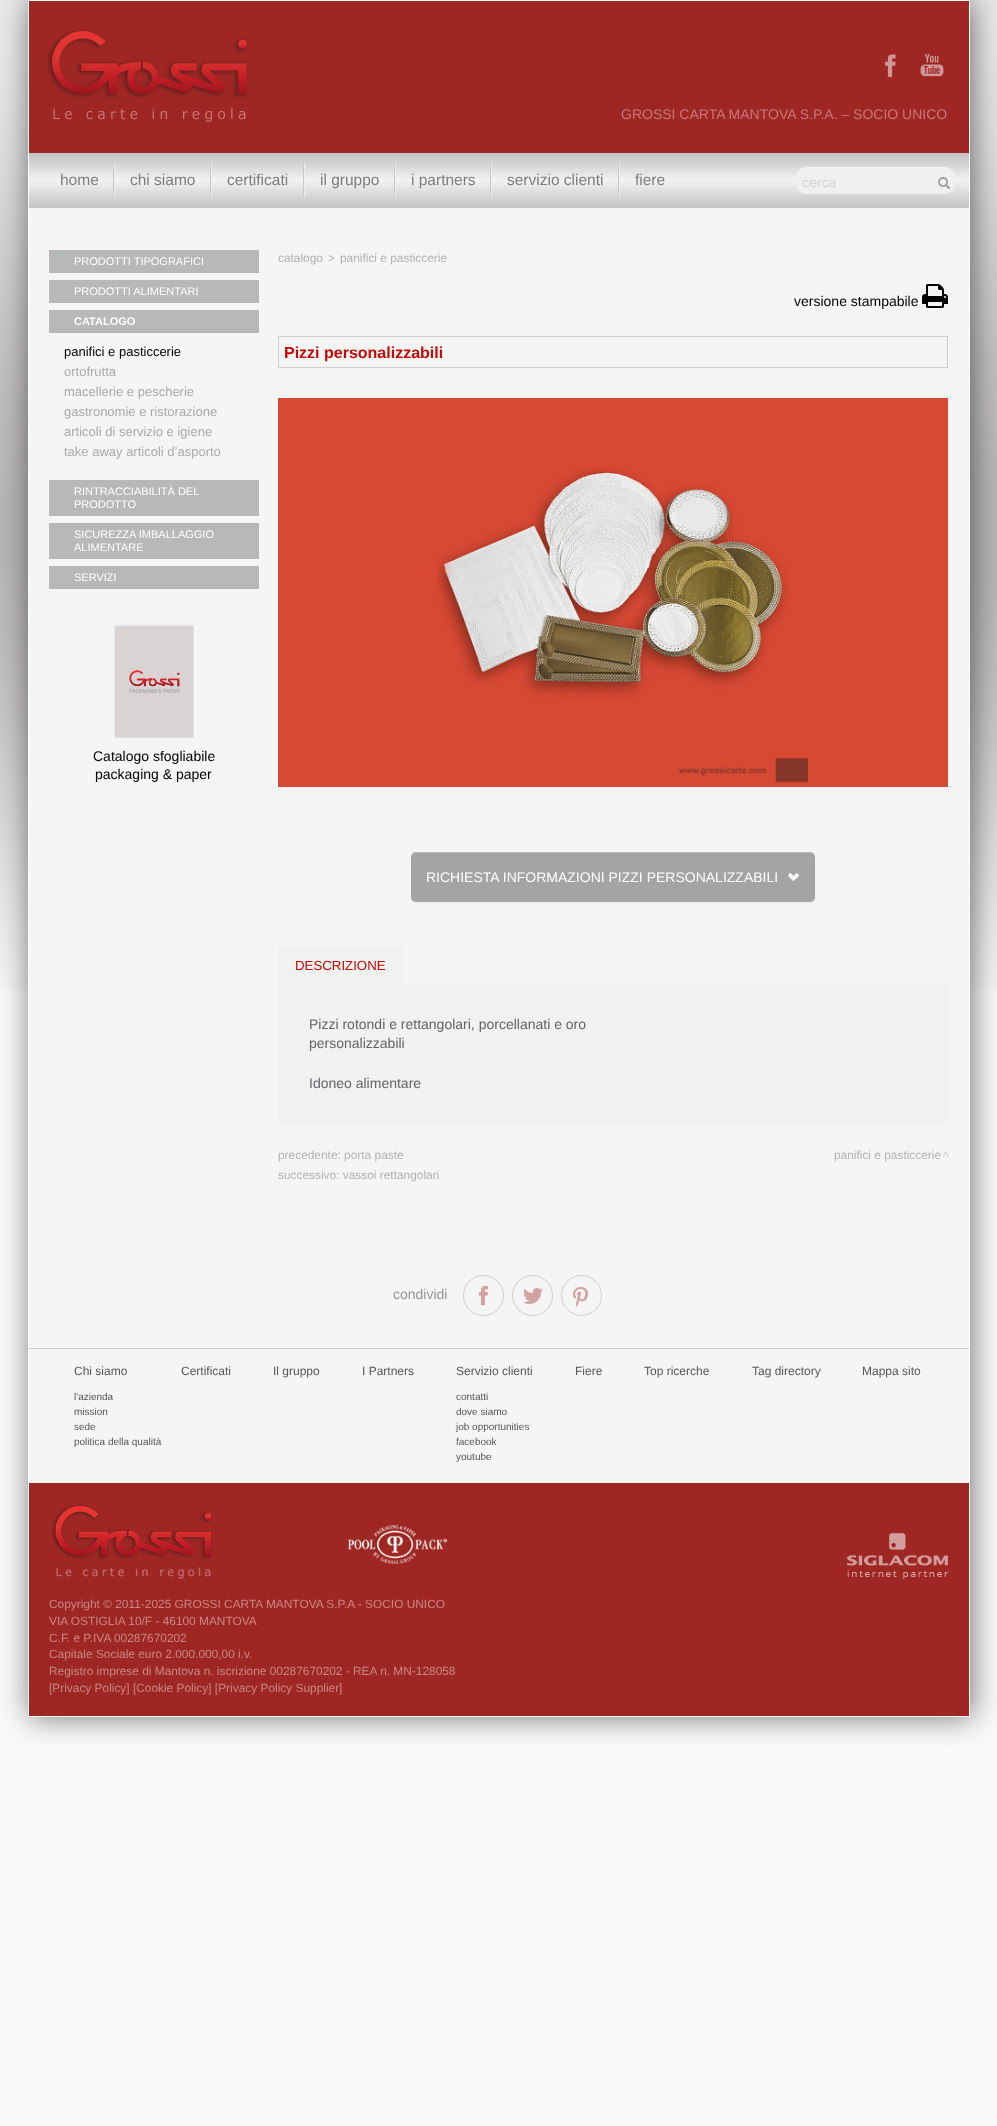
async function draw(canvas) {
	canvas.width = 997;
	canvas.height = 2126;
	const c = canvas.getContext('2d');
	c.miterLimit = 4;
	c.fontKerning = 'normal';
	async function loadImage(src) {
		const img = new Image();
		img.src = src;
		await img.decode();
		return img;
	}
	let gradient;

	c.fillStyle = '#f9f9f9';
	c.fillRect(0, 0, 997, 2126);
	c.drawImage(await loadImage('img1.png'), 0, 0, 997, 990);
	c.fillStyle = '#0000008a';
	c.filter = 'blur(15px)';
	c.beginPath();
	c.rect(30, 0, 942, 1717);
	c.fill();
	c.filter = 'none';
	c.fillStyle = '#fff';
	c.fillRect(28, 0, 942, 1717);
	c.fillStyle = '#9e2723';
	c.fillRect(29, 1, 940, 152);
	c.drawImage(await loadImage('img2.png'), 47, 30, 201, 92);
	c.drawImage(await loadImage('img3.png'), 885, 54, 11, 23);
	c.drawImage(await loadImage('img4.png'), 920, 53, 24, 24);
	c.font = '14px Liberation Sans';
	c.fillStyle = '#c9777b';
	c.fillText('GROSSI CARTA MANTOVA S.P.A. – SOCIO UNICO', 621, 119);
	gradient = c.createLinearGradient(499, 153, 499, 208);
	gradient.addColorStop(0, '#c2c0c1');
	gradient.addColorStop(0.5, '#f2f2f2');
	gradient.addColorStop(1, '#c3c1c2');
	c.fillStyle = gradient;
	c.fillRect(29, 153, 940, 55);
	c.fillStyle = '#c7c7c7';
	c.fillRect(113, 163, 1, 34);
	c.font = '15.5px Liberation Sans';
	c.fillStyle = '#7d7d7d';
	c.fillText('home', 60, 185);
	c.fillStyle = '#c7c7c7';
	c.fillRect(210, 163, 1, 34);
	c.fillStyle = '#ededed';
	c.fillRect(114, 163, 1, 34);
	c.fillStyle = '#7d7d7d';
	c.fillText('chi siamo', 130, 185);
	c.fillStyle = '#c7c7c7';
	c.fillRect(303, 163, 1, 34);
	c.fillStyle = '#ededed';
	c.fillRect(211, 163, 1, 34);
	c.fillStyle = '#7d7d7d';
	c.fillText('certificati', 227, 185);
	c.fillStyle = '#c7c7c7';
	c.fillRect(394, 163, 1, 34);
	c.fillStyle = '#ededed';
	c.fillRect(304, 163, 1, 34);
	c.fillStyle = '#7d7d7d';
	c.fillText('il gruppo', 320, 185);
	c.fillStyle = '#c7c7c7';
	c.fillRect(490, 163, 1, 34);
	c.fillStyle = '#ededed';
	c.fillRect(395, 163, 1, 34);
	c.fillStyle = '#7d7d7d';
	c.fillText('i partners', 411, 185);
	c.fillStyle = '#c7c7c7';
	c.fillRect(618, 163, 1, 34);
	c.fillStyle = '#ededed';
	c.fillRect(491, 163, 1, 34);
	c.fillStyle = '#7d7d7d';
	c.fillText('servizio clienti', 507, 185);
	c.fillStyle = '#ededed';
	c.fillRect(619, 163, 1, 34);
	c.fillStyle = '#7d7d7d';
	c.fillText('fiere', 635, 185);
	c.fillStyle = '#f1f0f0';
	c.beginPath();
	c.roundRect(796, 167, 159, 27, 10);
	c.fill();
	c.font = '13.25px Raleway';
	c.fillStyle = '#ccc';
	c.fillText('cerca', 802, 187);
	c.drawImage(await loadImage('img5.png'), 938, 177, 13, 13);
	c.fillStyle = '#f5f5f5';
	c.fillRect(29, 208, 940, 1140);
	c.fillStyle = '#b6b8ba';
	c.fillRect(49, 250, 210, 23);
	c.font = '11px Liberation Sans';
	c.fillStyle = '#fff';
	c.fillText('PRODOTTI TIPOGRAFICI', 74, 265);
	c.fillStyle = '#b6b8ba';
	c.fillRect(49, 280, 210, 23);
	c.fillStyle = '#fff';
	c.fillText('PRODOTTI ALIMENTARI', 74, 295);
	c.fillStyle = '#b6b8ba';
	c.fillRect(49, 310, 210, 23);
	c.font = 'bold 11px Liberation Sans';
	c.fillStyle = '#fff';
	c.fillText('CATALOGO', 74, 325);
	c.font = '13px Liberation Sans';
	c.fillStyle = '#000';
	c.fillText('panifici e pasticcerie', 64, 356);
	c.fillStyle = '#a7a9ac';
	for (const [text, x, y] of [
		['ortofrutta', 64, 376],
		['macellerie e pescherie', 64, 396],
		['gastronomie e ristorazione', 64, 416],
		['articoli di servizio e igiene', 64, 436],
		['take away articoli d’asporto', 64, 456],
	]) {
		c.fillText(text, x, y);
	}
	c.fillStyle = '#b6b8ba';
	c.fillRect(49, 480, 210, 36);
	c.font = '11px Liberation Sans';
	c.fillStyle = '#fff';
	c.fillText('RINTRACCIABILITÀ DEL', 74, 495);
	c.fillText('PRODOTTO', 74, 508);
	c.fillStyle = '#b6b8ba';
	c.fillRect(49, 523, 210, 36);
	c.fillStyle = '#fff';
	c.fillText('SICUREZZA IMBALLAGGIO', 74, 538);
	c.fillText('ALIMENTARE', 74, 551);
	c.fillStyle = '#b6b8ba';
	c.fillRect(49, 566, 210, 23);
	c.fillStyle = '#fff';
	c.fillText('SERVIZI', 74, 581);
	c.drawImage(await loadImage('img6.png'), 113, 624, 81, 114);
	c.font = '14px Liberation Sans';
	c.fillStyle = '#000';
	c.fillText('Catalogo sfogliabile', 93, 761);
	c.fillText('packaging & paper', 95, 779);
	c.font = '11.9px Liberation Sans';
	c.fillStyle = '#b3b2b2';
	for (const [text, x, y] of [
		['catalogo', 278, 262],
		['>', 328, 262],
		['panifici e pasticcerie', 340, 262],
	]) {
		c.fillText(text, x, y);
	}
	c.font = '14px Liberation Sans';
	c.fillStyle = '#000';
	c.fillText('versione stampabile', 794, 306);
	c.drawImage(await loadImage('img7.png'), 922, 284, 26, 24);
	c.strokeStyle = '#cecece';
	c.strokeRect(278.5, 336.5, 669, 31);
	c.font = 'bold 16px Liberation Sans';
	c.fillStyle = '#c50903';
	c.fillText('Pizzi personalizzabili', 284, 358);
	c.fillStyle = '#d74933';
	c.fillRect(278, 398, 670, 389);
	c.drawImage(await loadImage('img8.png'), 436, 467, 372, 316);
	c.fillStyle = '#0000000d';
	c.filter = 'blur(1px)';
	c.beginPath();
	c.roundRect(411, 853, 404, 50, 5);
	c.fill();
	c.filter = 'none';
	c.fillStyle = '#a4a4a5';
	c.beginPath();
	c.roundRect(411, 852, 404, 50, 5);
	c.fill();
	c.fillStyle = '#ffffff33';
	c.beginPath();
	c.moveTo(416, 853);
	c.lineTo(810, 853);
	c.bezierCurveTo(813, 853, 815, 855, 815, 858);
	c.lineTo(815, 857);
	c.bezierCurveTo(815, 854, 813, 852, 810, 852);
	c.lineTo(416, 852);
	c.bezierCurveTo(413, 852, 411, 854, 411, 857);
	c.lineTo(411, 858);
	c.bezierCurveTo(411, 855, 413, 853, 416, 853);
	c.closePath();
	c.fill();
	c.font = '14px Liberation Sans';
	c.fillStyle = '#fff';
	c.fillText('RICHIESTA INFORMAZIONI PIZZI PERSONALIZZABILI', 426, 882);
	c.drawImage(await loadImage('img9.png'), 787, 873, 12, 9);
	c.fillStyle = '#f1f1f1';
	c.fillRect(278, 947, 125, 37);
	c.font = '13.25px Liberation Sans';
	c.fillStyle = '#c50903';
	c.fillText('DESCRIZIONE', 295, 970);
	c.fillStyle = '#f1f1f1';
	c.fillRect(278, 984, 670, 140);
	c.font = '14px Liberation Sans';
	c.fillStyle = '#636466';
	for (const [text, x, y] of [
		['Pizzi rotondi e rettangolari, porcellanati e oro', 309, 1029],
		['personalizzabili', 309, 1048],
		['Idoneo alimentare', 309, 1088],
	]) {
		c.fillText(text, x, y);
	}
	c.font = '11.9px Liberation Sans';
	c.fillStyle = '#b3b2b2';
	for (const [text, x, y] of [
		['precedente: porta paste', 278, 1159],
		['successivo: vassoi rettangolari', 278, 1179],
		['panifici e pasticcerie', 834, 1159],
	]) {
		c.fillText(text, x, y);
	}
	c.font = '11.9px Liberation Serif';
	c.fillText('^', 943, 1159);
	c.fillStyle = '#cecece';
	c.fillRect(29, 1348, 940, 1);
	c.font = '14px Liberation Sans';
	c.fillStyle = '#939495';
	c.fillText('condividi', 393, 1299);
	c.beginPath();
	c.arc(483.5, 1295.5, 20, 0, 2 * Math.PI);
	c.stroke();
	c.drawImage(await loadImage('img10.png'), 479, 1286, 9, 19);
	c.beginPath();
	c.arc(532.5, 1295.5, 20, 0, 2 * Math.PI);
	c.stroke();
	c.drawImage(await loadImage('img11.png'), 523, 1288, 20, 16);
	c.beginPath();
	c.arc(581.5, 1295.5, 20, 0, 2 * Math.PI);
	c.stroke();
	c.drawImage(await loadImage('img12.png'), 573, 1287, 15, 20);
	c.fillStyle = '#f5f5f5';
	c.fillRect(29, 1349, 940, 134);
	c.font = '12px Liberation Sans';
	c.fillStyle = '#555';
	c.fillText('Chi siamo', 74, 1375);
	c.font = '10px Liberation Sans';
	for (const [text, x, y] of [
		['l\'azienda', 74, 1400],
		['mission', 74, 1415],
		['sede', 74, 1430],
		['politica della qualità', 74, 1445],
	]) {
		c.fillText(text, x, y);
	}
	c.font = '12px Liberation Sans';
	for (const [text, x, y] of [
		['Certificati', 181, 1375],
		['Il gruppo', 273, 1375],
		['I Partners', 362, 1375],
		['Servizio clienti', 456, 1375],
	]) {
		c.fillText(text, x, y);
	}
	c.font = '10px Liberation Sans';
	for (const [text, x, y] of [
		['contatti', 456, 1400],
		['dove siamo', 456, 1415],
		['job opportunities', 456, 1430],
		['facebook', 456, 1445],
		['youtube', 456, 1460],
	]) {
		c.fillText(text, x, y);
	}
	c.font = '12px Liberation Sans';
	for (const [text, x, y] of [
		['Fiere', 575, 1375],
		['Top ricerche', 644, 1375],
		['Tag directory', 752, 1375],
		['Mappa sito', 862, 1375],
	]) {
		c.fillText(text, x, y);
	}
	c.fillStyle = '#9e2723';
	c.fillRect(29, 1483, 940, 233);
	c.drawImage(await loadImage('img13.png'), 51, 1505, 161, 74);
	c.drawImage(await loadImage('img14.png'), 348, 1525, 100, 39);
	c.drawImage(await loadImage('img15.png'), 847, 1533, 101, 46);
	c.font = '11.9px Liberation Sans';
	c.fillStyle = '#c98785';
	for (const [text, x, y] of [
		['Copyright © 2011-2025 GROSSI CARTA MANTOVA S.P.A - SOCIO UNICO', 49, 1608],
		['VIA OSTIGLIA 10/F - 46100 MANTOVA', 49, 1625],
		['C.F. e P.IVA 00287670202', 49, 1642],
		['Capitale Sociale euro 2.000.000,00 i.v.', 49, 1658],
		['Registro imprese di Mantova n. iscrizione 00287670202 - REA n. MN-128058', 49, 1675],
		['[Privacy Policy] [Cookie Policy] [Privacy Policy Supplier]', 49, 1692],
	]) {
		c.fillText(text, x, y);
	}
}

draw(document.querySelector('canvas'));
